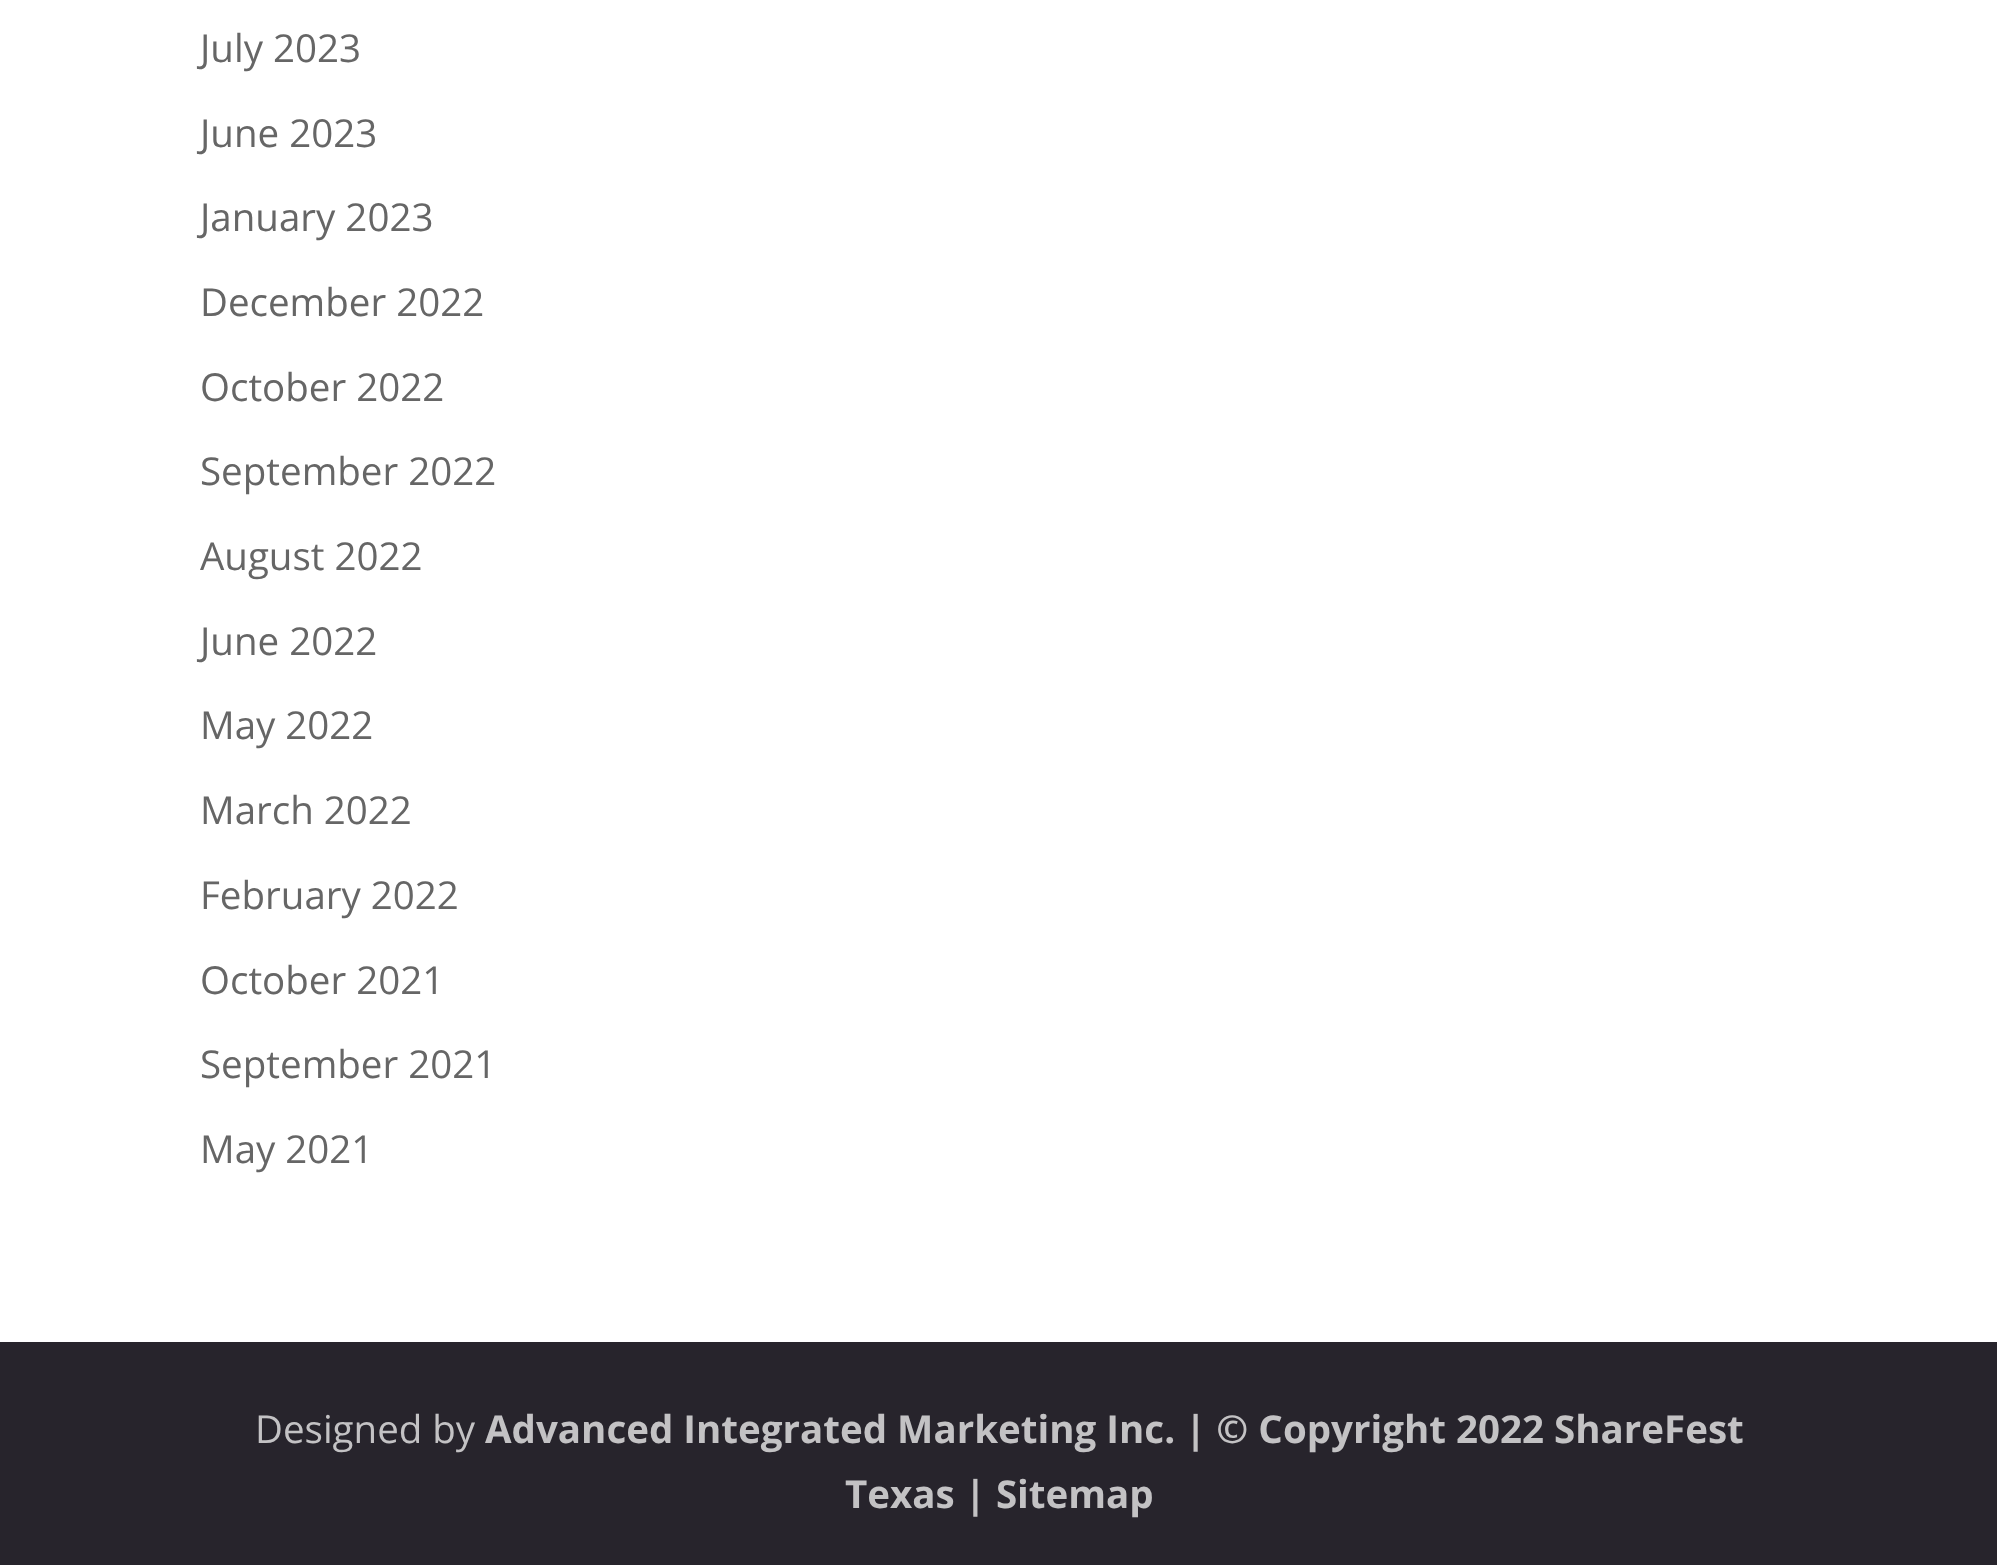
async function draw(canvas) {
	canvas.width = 1997;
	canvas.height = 1565;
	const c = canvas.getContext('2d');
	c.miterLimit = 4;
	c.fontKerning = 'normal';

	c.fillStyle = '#fff';
	c.fillRect(0, 0, 1997, 1565);
	c.font = '38.5px Open Sans';
	c.fillStyle = '#666';
	for (const [text, x, y] of [
		['July 2023', 200, 62],
		['June 2023', 200, 147],
		['January 2023', 200, 231],
		['December 2022', 200, 316],
		['October 2022', 200, 401],
		['September 2022', 200, 485],
		['August 2022', 200, 570],
		['June 2022', 200, 655],
		['May 2022', 200, 739],
		['March 2022', 200, 824],
		['February 2022', 200, 909],
		['October 2021', 200, 994],
		['September 2021', 200, 1078],
		['May 2021', 200, 1163],
	]) {
		c.fillText(text, x, y);
	}
	c.fillStyle = '#27242c';
	c.fillRect(0, 1342, 1997, 223);
	c.fillStyle = '#c3c2c4';
	c.fillText('Designed by', 255, 1443);
	c.font = 'bold 38.5px Open Sans';
	c.fillText('Advanced Integrated Marketing Inc. | © Copyright 2022 ShareFest', 485, 1443);
	c.fillText('Texas | Sitemap', 845, 1508);
}

draw(document.querySelector('canvas'));
